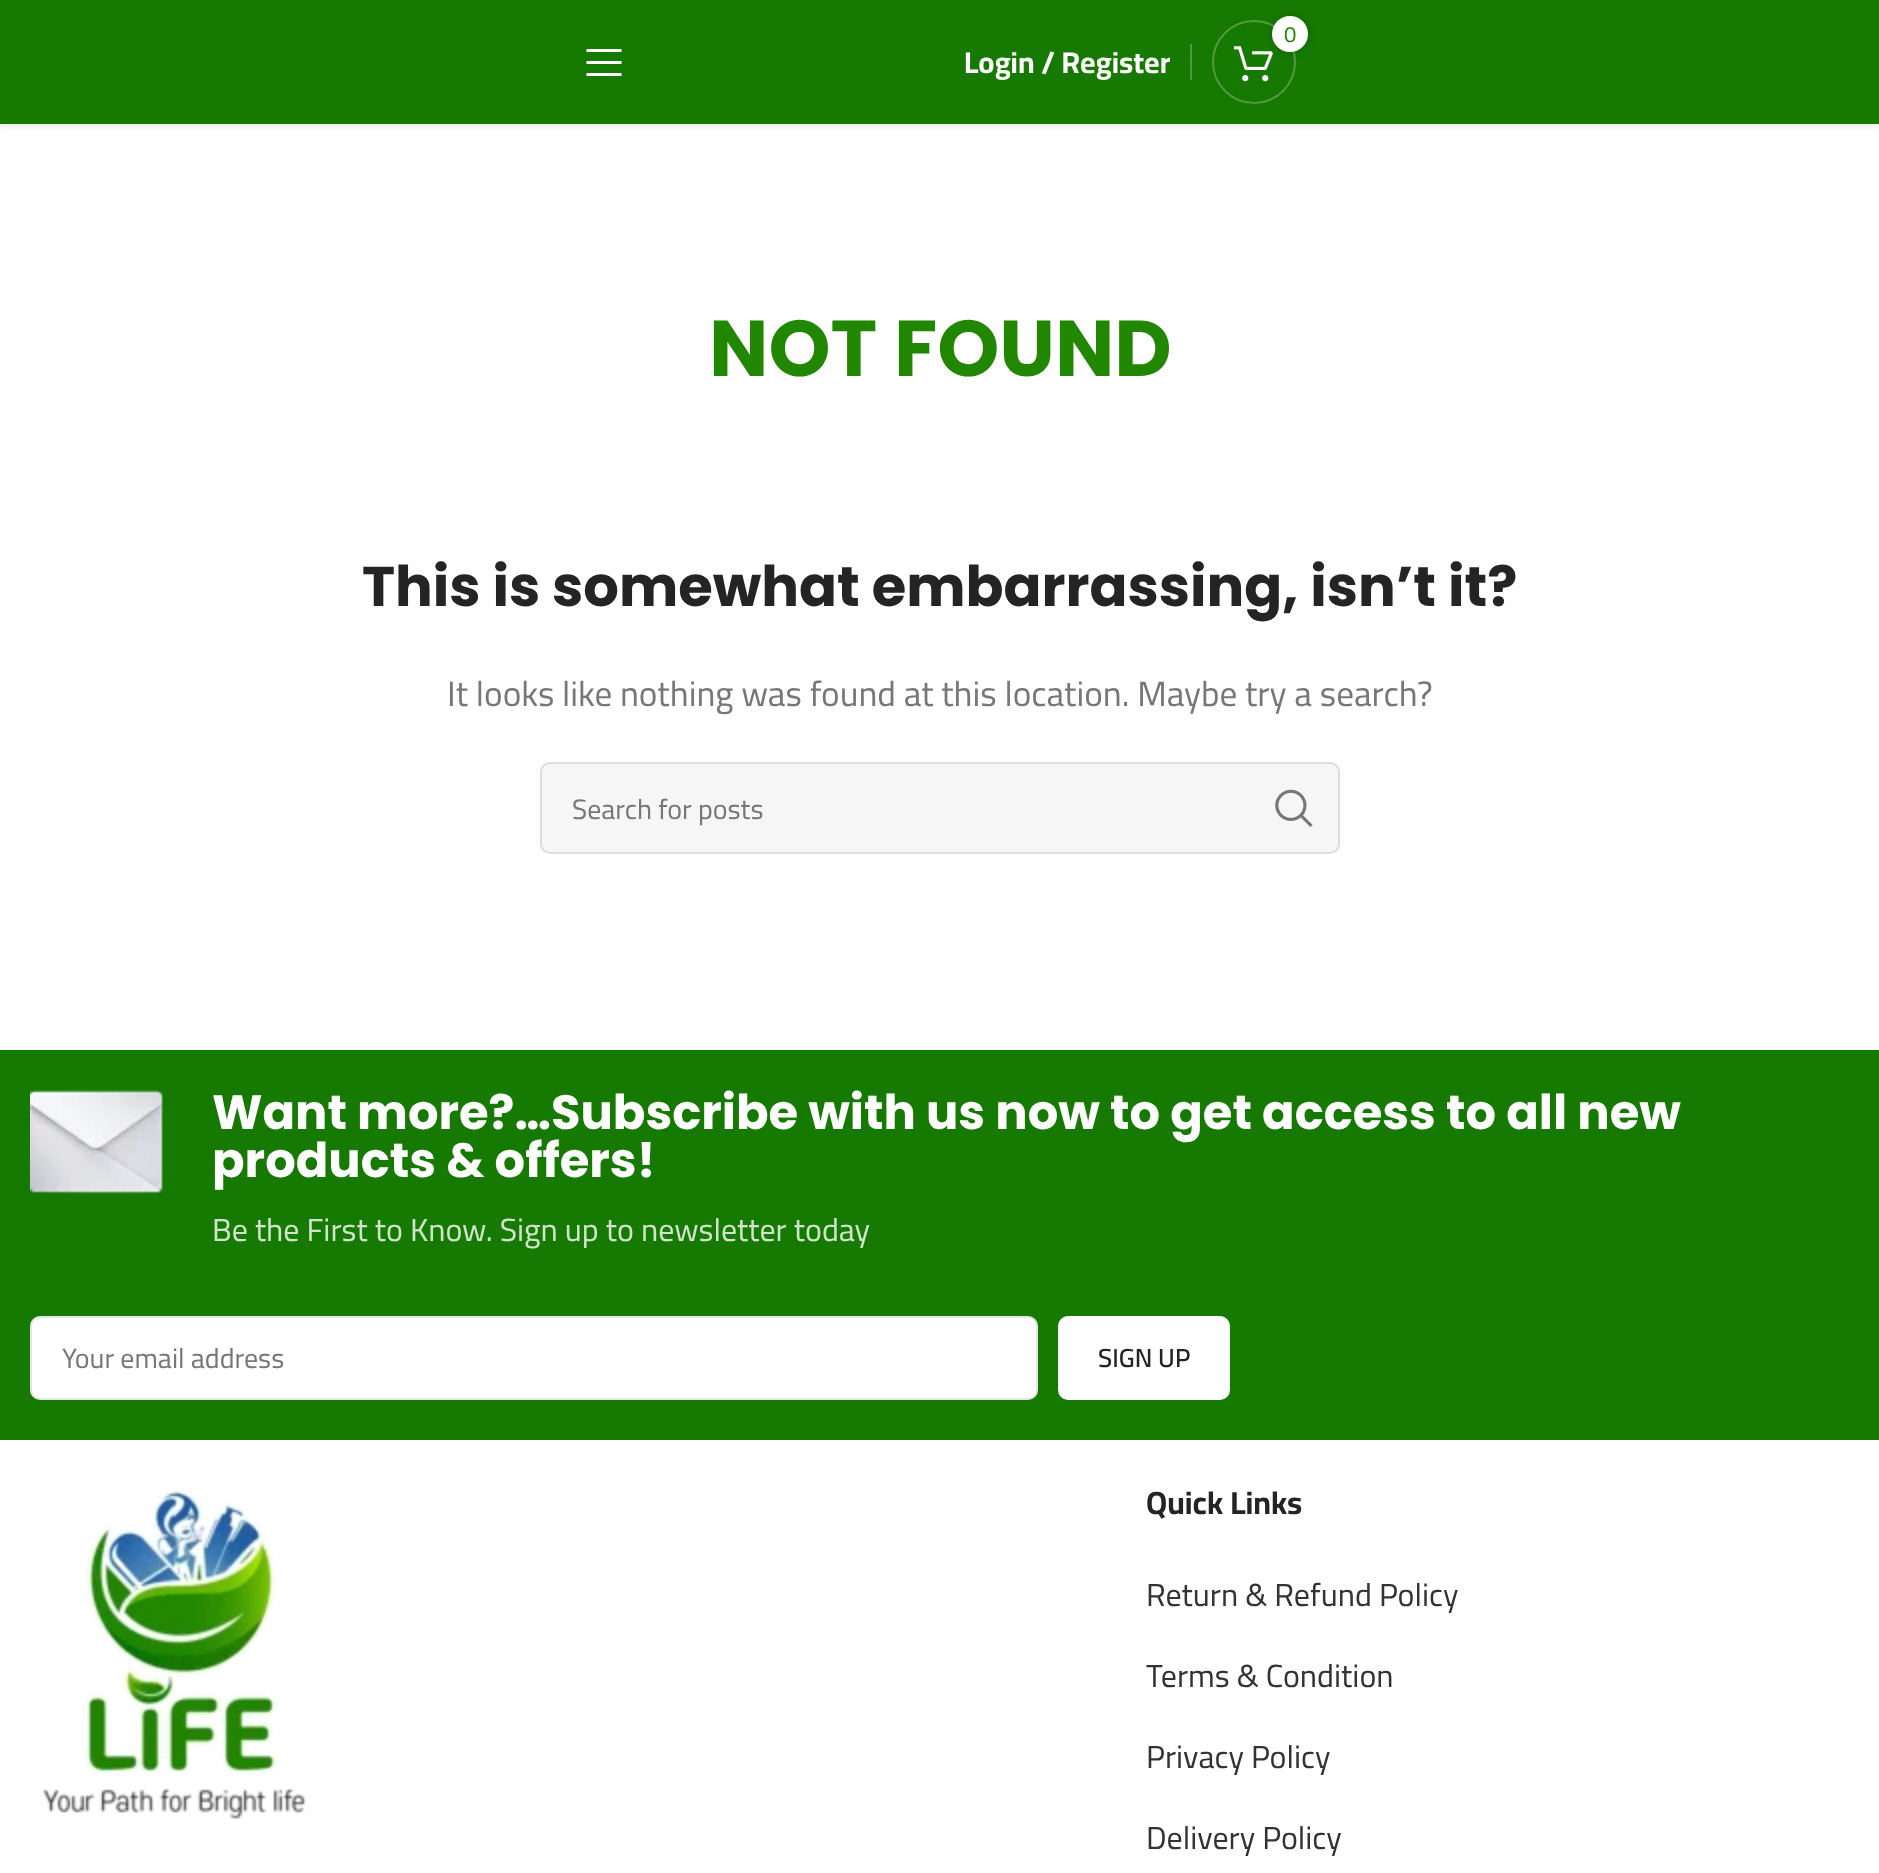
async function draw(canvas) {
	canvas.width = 1879;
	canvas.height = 1873;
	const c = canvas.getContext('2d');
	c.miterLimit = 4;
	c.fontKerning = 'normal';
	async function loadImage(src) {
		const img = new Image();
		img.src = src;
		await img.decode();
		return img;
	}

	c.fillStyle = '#fff';
	c.fillRect(0, 0, 1879, 1873);
	c.fillStyle = '#0000001a';
	c.filter = 'blur(3px)';
	c.beginPath();
	c.rect(0, 2, 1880, 124);
	c.fill();
	c.filter = 'none';
	c.fillStyle = '#167902';
	c.fillRect(0, 0, 1879, 124);
	c.beginPath();
	c.arc(1254, 62, 41, 0, 2 * Math.PI);
	c.strokeStyle = '#509b41';
	c.lineWidth = 2;
	c.stroke();
	c.drawImage(await loadImage('img1.png'), 1234, 46, 39, 36);
	c.fillStyle = '#0000002b';
	c.filter = 'blur(4px)';
	c.beginPath();
	c.roundRect(1272, 16, 36, 36, 18);
	c.fill();
	c.filter = 'none';
	c.fillStyle = '#fff';
	c.beginPath();
	c.arc(1290, 34, 18, 0, 2 * Math.PI);
	c.fill();
	c.font = '22px Cairo';
	c.fillStyle = '#228700';
	c.fillText('0', 1284, 42);
	c.fillStyle = '#fff';
	c.beginPath();
	c.moveTo(586.5, 52);
	c.lineTo(621.5, 52);
	c.lineTo(621.5, 49);
	c.lineTo(586.5, 49);
	c.closePath();
	c.moveTo(586.5, 64);
	c.lineTo(621.5, 64);
	c.lineTo(621.5, 61);
	c.lineTo(586.5, 61);
	c.closePath();
	c.moveTo(586.5, 76);
	c.lineTo(621.5, 76);
	c.lineTo(621.5, 73);
	c.lineTo(586.5, 73);
	c.closePath();
	c.fill();
	c.font = 'bold 30px Cairo';
	c.fillText('Login / Register', 964, 73);
	c.fillStyle = '#509b41';
	c.fillRect(1190, 44, 2, 36);
	c.font = 'bold 79px Poppins';
	c.fillStyle = '#228700';
	c.fillText('NOT FOUND', 709, 376);
	c.font = 'bold 56px Poppins';
	c.fillStyle = '#242424';
	c.fillText('This is somewhat embarrassing, isn’t it?', 362, 606);
	c.font = '35.2px Cairo';
	c.fillStyle = '#777';
	c.fillText('It looks like nothing was found at this location. Maybe try a search?', 447, 706);
	c.fillStyle = '#f6f6f6';
	c.beginPath();
	c.roundRect(540, 762, 800, 92, 10);
	c.fill();
	c.beginPath();
	c.roundRect(541, 763, 798, 90, 9);
	c.strokeStyle = '#0000001a';
	c.stroke();
	c.font = '28px Cairo';
	c.fillStyle = '#777';
	c.fillText('Search for posts', 572, 819);
	c.drawImage(await loadImage('img2.png'), 1275, 789, 38, 38);
	c.fillStyle = '#167902';
	c.fillRect(0, 1050, 1879, 390);
	c.drawImage(await loadImage('img3.png'), 30, 1090, 134, 104);
	c.font = 'bold 48px Poppins';
	c.fillStyle = '#fff';
	c.fillText('Want more?…Subscribe with us now to get access to all new', 212, 1129);
	c.fillText('products & offers!', 212, 1177);
	c.font = '32px Cairo';
	c.fillStyle = '#d0e4cc';
	c.fillText('Be the First to Know. Sign up to newsletter today', 212, 1241);
	c.fillStyle = '#fff';
	c.beginPath();
	c.roundRect(30, 1316, 1008, 84, 10);
	c.fill();
	c.beginPath();
	c.roundRect(31, 1317, 1006, 82, 9);
	c.stroke();
	c.font = '28px Cairo';
	c.fillStyle = '#777';
	c.fillText('Your email address', 62, 1368);
	c.fillStyle = '#fff';
	c.beginPath();
	c.roundRect(1058, 1316, 172, 84, 10);
	c.fill();
	c.font = '600 26px Cairo';
	c.fillStyle = '#242424';
	c.fillText('SIGN UP', 1098, 1367);
	c.drawImage(await loadImage('img4.png'), 43, 1488, 263, 332);
	c.font = 'bold 32px Cairo';
	c.fillText('Quick Links', 1146, 1514);
	c.font = '32px Cairo';
	c.fillStyle = '#333';
	for (const [text, x, y] of [
		['Return & Refund Policy', 1146, 1606],
		['Terms & Condition', 1146, 1687],
		['Privacy Policy', 1146, 1768],
		['Delivery Policy', 1146, 1849],
	]) {
		c.fillText(text, x, y);
	}
}

draw(document.querySelector('canvas'));
